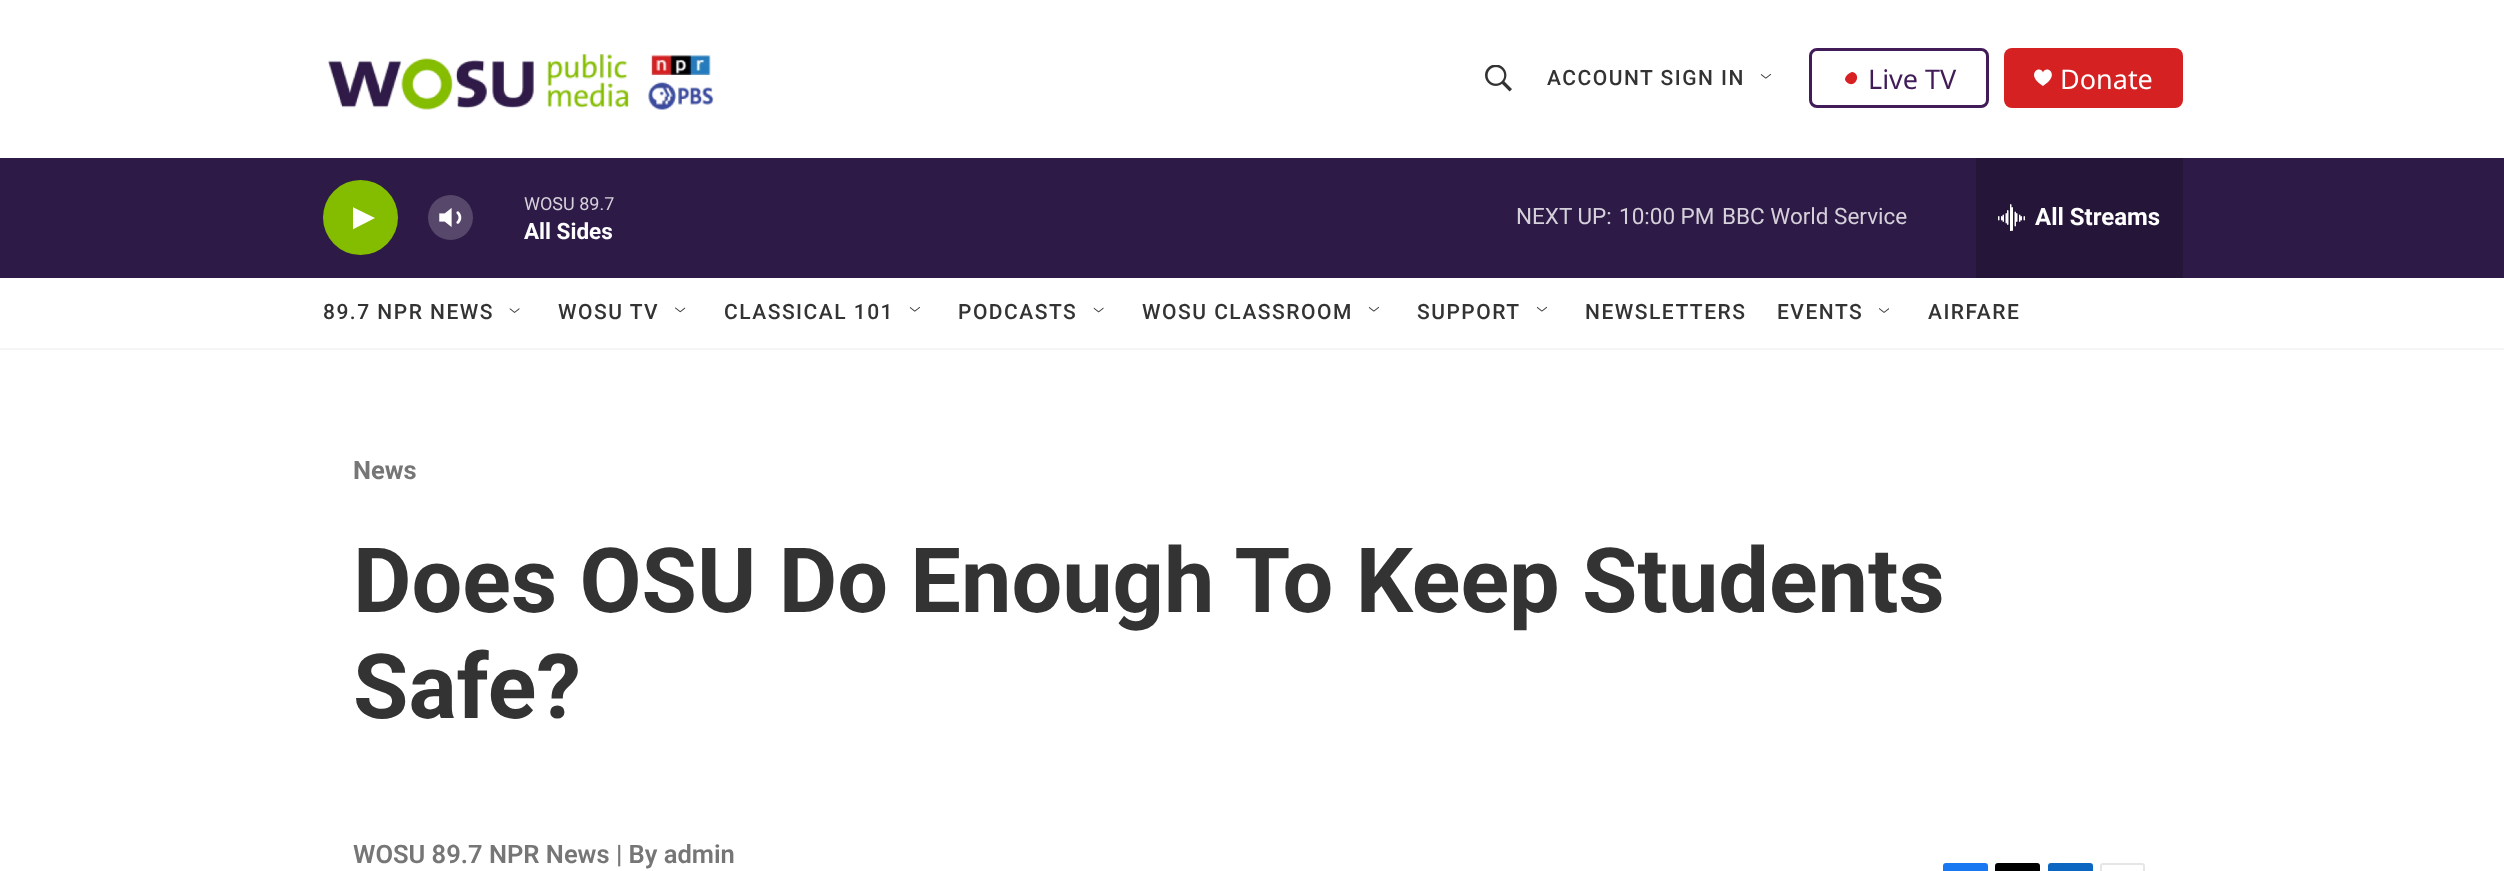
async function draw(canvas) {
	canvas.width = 2504;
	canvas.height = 871;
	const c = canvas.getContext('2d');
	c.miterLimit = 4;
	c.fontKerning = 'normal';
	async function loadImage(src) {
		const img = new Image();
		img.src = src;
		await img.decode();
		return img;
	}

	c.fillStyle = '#fff';
	c.fillRect(0, 0, 2504, 871);
	c.fillStyle = '#f5f5f5';
	c.fillRect(0, 348, 2504, 2);
	c.drawImage(await loadImage('img1.png'), 328, 54, 386, 56);
	c.drawImage(await loadImage('img2.png'), 1485, 65, 27, 27);
	c.letterSpacing = '1.5px';
	c.font = '500 21px Roboto';
	c.fillStyle = '#333';
	c.fillText('ACCOUNT SIGN IN', 1547, 85);
	c.drawImage(await loadImage('img3.png'), 1760, 73, 11, 6);
	c.beginPath();
	c.roundRect(1810.5, 49.5, 177, 57, 6.5);
	c.strokeStyle = '#411c58';
	c.lineWidth = 3;
	c.stroke();
	c.fillStyle = '#d62021';
	c.beginPath();
	c.moveTo(1852.5, 72);
	c.bezierCurveTo(1862, 74.5, 1855, 89, 1847, 82.5);
	c.bezierCurveTo(1846.5, 82, 1845, 80.5, 1845, 79.5);
	c.bezierCurveTo(1845, 76, 1849, 72.5, 1852.5, 72);
	c.closePath();
	c.fill();
	c.letterSpacing = '0px';
	c.font = '27px Noto Sans';
	c.fillStyle = '#411c58';
	c.fillText('Live TV', 1868, 89);
	c.fillStyle = '#d52122';
	c.beginPath();
	c.roundRect(2004, 48, 179, 60, 8);
	c.fill();
	c.fillStyle = '#fff';
	c.beginPath();
	c.moveTo(2043, 72.5);
	c.bezierCurveTo(2040, 64.5, 2024.5, 74.5, 2043, 86);
	c.bezierCurveTo(2061.5, 74.5, 2046, 64.5, 2043, 72.5);
	c.closePath();
	c.fill();
	c.fillText('Donate', 2060, 89);
	c.fillStyle = '#2e1a47';
	c.fillRect(0, 158, 2504, 120);
	c.fillStyle = '#84bd00';
	c.beginPath();
	c.arc(360.5, 217.5, 37.5, 0, 2 * Math.PI);
	c.fill();
	c.save();
	c.beginPath();
	c.rect(353, 204, 22, 29);
	c.clip();
	c.fillStyle = '#fff';
	c.beginPath();
	c.moveTo(352.5, 207);
	c.lineTo(375, 218);
	c.lineTo(352.5, 229.5);
	c.closePath();
	c.fill();
	c.restore();
	c.drawImage(await loadImage('img4.png'), 439, 208, 23, 19);
	c.fillStyle = '#ffffff33';
	c.beginPath();
	c.arc(450.5, 217.5, 22.5, 0, 2 * Math.PI);
	c.fill();
	c.font = '18px Roboto';
	c.fillStyle = '#d5d1da';
	c.fillText('WOSU 89.7', 524, 210);
	c.font = 'bold 22.5px "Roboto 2"';
	c.fillStyle = '#fff';
	c.fillText('All Sides', 524, 239);
	c.font = '22.5px Roboto';
	c.fillStyle = '#d5d1da';
	for (const [text, x, y] of [
		['NEXT UP:', 1516, 224],
		['10:00 PM', 1619, 224],
		['BBC World Service', 1722, 224],
	]) {
		c.fillText(text, x, y);
	}
	c.fillStyle = '#251539';
	c.fillRect(1976, 158, 207, 120);
	c.drawImage(await loadImage('img5.png'), 1998, 204, 27, 27);
	c.font = 'bold 24px "Roboto 2"';
	c.fillStyle = '#fff';
	c.fillText('All Streams', 2035, 225);
	c.letterSpacing = '1.5px';
	c.font = '500 21px Roboto';
	c.fillStyle = '#333';
	c.fillText('89.7 NPR NEWS', 323, 319);
	c.drawImage(await loadImage('img6.png'), 509, 308, 11, 5);
	c.fillText('WOSU TV', 558, 319);
	c.drawImage(await loadImage('img7.png'), 675, 307, 11, 6);
	c.fillText('CLASSICAL 101', 724, 319);
	c.drawImage(await loadImage('img8.png'), 909, 307, 11, 5);
	c.fillText('PODCASTS', 958, 319);
	c.drawImage(await loadImage('img9.png'), 1093, 307, 11, 6);
	c.fillText('WOSU CLASSROOM', 1142, 319);
	c.drawImage(await loadImage('img10.png'), 1368, 306, 11, 6);
	c.fillText('SUPPORT', 1417, 319);
	c.drawImage(await loadImage('img11.png'), 1536, 306, 11, 6);
	c.fillText('NEWSLETTERS', 1585, 319);
	c.fillText('EVENTS', 1777, 319);
	c.drawImage(await loadImage('img12.png'), 1879, 308, 10, 5);
	c.fillText('AIRFARE', 1928, 319);
	c.letterSpacing = '0px';
	c.font = 'bold 25.5px Roboto';
	c.fillStyle = '#767676';
	c.fillText('News', 353, 479);
	c.font = 'bold 90px Roboto';
	c.fillStyle = '#333';
	c.fillText('Does OSU Do Enough To Keep Students', 353, 612);
	c.fillText('Safe?', 353, 718);
	c.font = '600 25.5px Roboto';
	c.fillStyle = '#767676';
	c.fillText('WOSU 89.7 NPR News | By admin', 353, 863);
	c.fillStyle = '#1778f2';
	c.beginPath();
	c.roundRect(1943, 863, 45, 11, 3);
	c.fill();
	c.fillStyle = '#000';
	c.beginPath();
	c.roundRect(1995, 863, 45, 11, 3);
	c.fill();
	c.fillStyle = '#0a66c1';
	c.beginPath();
	c.roundRect(2048, 863, 45, 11, 3);
	c.fill();
	c.beginPath();
	c.roundRect(2101, 864, 43, 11, 2);
	c.strokeStyle = '#e6e6e6';
	c.lineWidth = 2;
	c.stroke();
}

draw(document.querySelector('canvas'));
